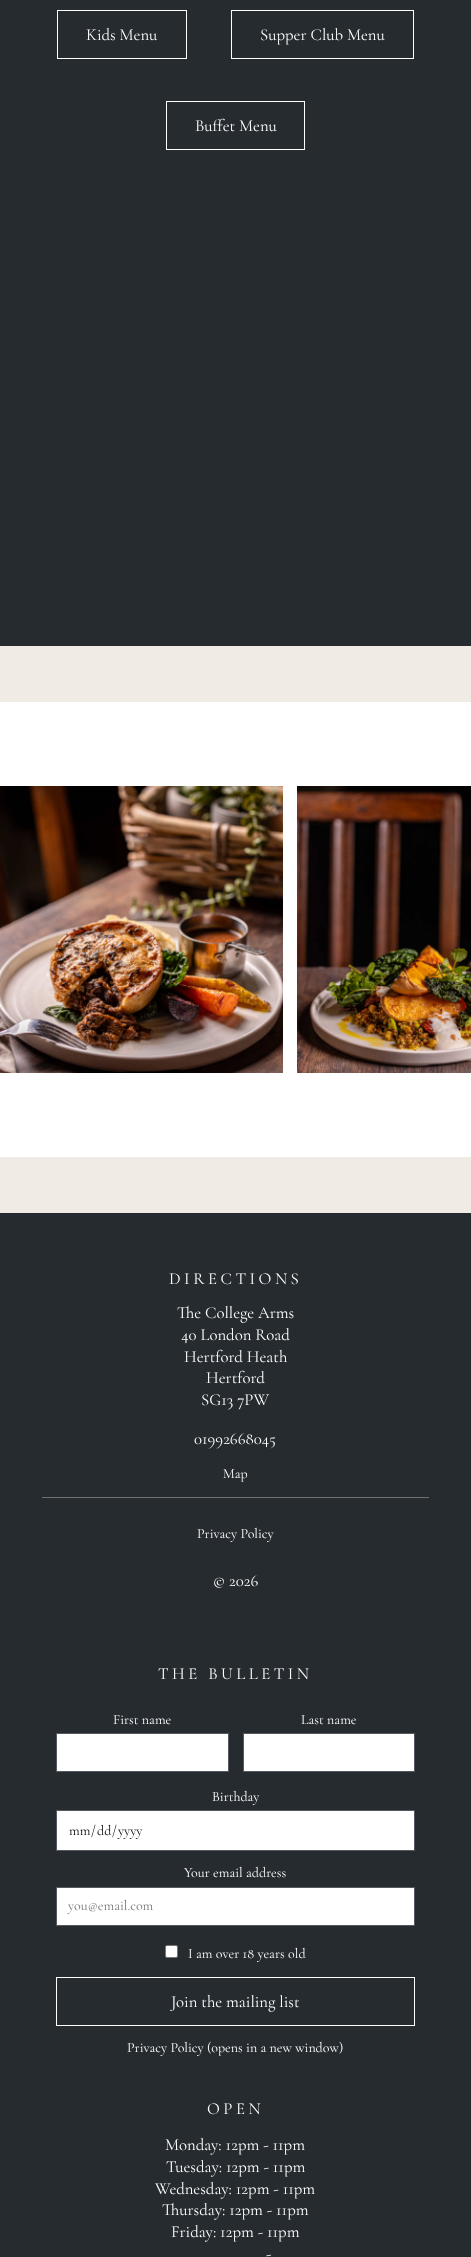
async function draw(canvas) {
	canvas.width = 471;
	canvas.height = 2257;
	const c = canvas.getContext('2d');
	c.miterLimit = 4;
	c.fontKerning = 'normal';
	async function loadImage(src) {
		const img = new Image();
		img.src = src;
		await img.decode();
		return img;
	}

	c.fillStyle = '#f0ebe5';
	c.fillRect(0, 0, 471, 2257);
	c.fillStyle = '#262b30';
	c.fillRect(0, 0, 471, 646);
	c.strokeStyle = '#fff';
	c.strokeRect(57.5, 10.5, 129, 48);
	c.font = '16.75px Cormorant Garamond';
	c.fillStyle = '#fff';
	c.fillText('Kids Menu', 86, 40);
	c.strokeRect(231.5, 10.5, 182, 48);
	c.fillText('Supper Club Menu', 260, 40);
	c.strokeRect(166.5, 101.5, 138, 48);
	c.fillText('Buffet Menu', 195, 131);
	c.fillRect(0, 702, 471, 455);
	c.drawImage(await loadImage('img1.png'), 0, 786, 283, 287);
	c.drawImage(await loadImage('img2.png'), 297, 786, 174, 287);
	c.fillStyle = '#262b30';
	c.fillRect(0, 1213, 471, 1044);
	c.fillStyle = '#6e6f6f';
	c.fillRect(42, 1497, 387, 1);
	c.letterSpacing = '3.5px';
	c.fillStyle = '#fff';
	c.fillText('DIRECTIONS', 169, 1284);
	c.letterSpacing = '0px';
	for (const [text, x, y] of [
		['The College Arms', 177, 1318],
		['40 London Road', 181, 1340],
		['Hertford Heath', 184, 1362],
		['Hertford', 206, 1383],
		['SG13 7PW', 201, 1405],
		['01992668045', 194, 1444],
	]) {
		c.fillText(text, x, y);
	}
	c.font = '14px Cormorant Garamond';
	c.fillText('Map', 223, 1478);
	c.fillText('Privacy Policy', 197, 1538);
	c.font = '16.75px Cormorant Garamond';
	c.fillText('© 2026', 213, 1586);
	c.letterSpacing = '3.5px';
	c.fillText('THE BULLETIN', 158, 1679);
	c.letterSpacing = '0px';
	c.font = '14px Cormorant Garamond';
	c.fillText('First name', 113, 1724);
	c.beginPath();
	c.rect(56.5, 1733.5, 172, 38);
	c.fill();
	c.strokeStyle = '#535861';
	c.stroke();
	c.fillText('Last name', 301, 1724);
	c.beginPath();
	c.rect(243.5, 1733.5, 171, 38);
	c.fill();
	c.stroke();
	c.fillText('Birthday', 212, 1801);
	c.beginPath();
	c.rect(56.5, 1810.5, 358, 40);
	c.fill();
	c.stroke();
	c.fillStyle = '#000';
	for (const [text, x, y] of [
		['mm', 69, 1835],
		['/', 91, 1835],
		['dd', 97, 1835],
		['/', 112, 1835],
		['yyyy', 118, 1835],
	]) {
		c.fillText(text, x, y);
	}
	c.fillStyle = '#fff';
	c.fillText('Your email address', 184, 1877);
	c.beginPath();
	c.rect(56.5, 1887.5, 358, 38);
	c.fill();
	c.stroke();
	c.fillStyle = '#757575';
	c.fillText('you@email.com', 68, 1910);
	c.fillStyle = '#fff';
	c.beginPath();
	c.roundRect(165.5, 1945.5, 12, 12, 1.5);
	c.fill();
	c.strokeStyle = '#767676';
	c.stroke();
	c.fillText('I am over 18 years old', 188, 1958);
	c.strokeStyle = '#fff';
	c.strokeRect(56.5, 1977.5, 358, 48);
	c.font = '16.75px Cormorant Garamond';
	c.fillText('Join the mailing list', 171, 2007);
	c.font = '14px Cormorant Garamond';
	c.fillText('Privacy Policy (opens in a new window)', 127, 2052);
	c.letterSpacing = '3.5px';
	c.font = '16.75px Cormorant Garamond';
	c.fillText('OPEN', 207, 2114);
	c.letterSpacing = '0px';
	for (const [text, x, y] of [
		['Monday: 12pm - 11pm', 165, 2150],
		['Tuesday: 12pm - 11pm', 166, 2172],
		['Wednesday: 12pm - 11pm', 155, 2194],
		['Thursday: 12pm - 11pm', 162, 2215],
		['Friday: 12pm - 11pm', 171, 2237],
		['-', 266, 2259],
	]) {
		c.fillText(text, x, y);
	}
}

draw(document.querySelector('canvas'));
